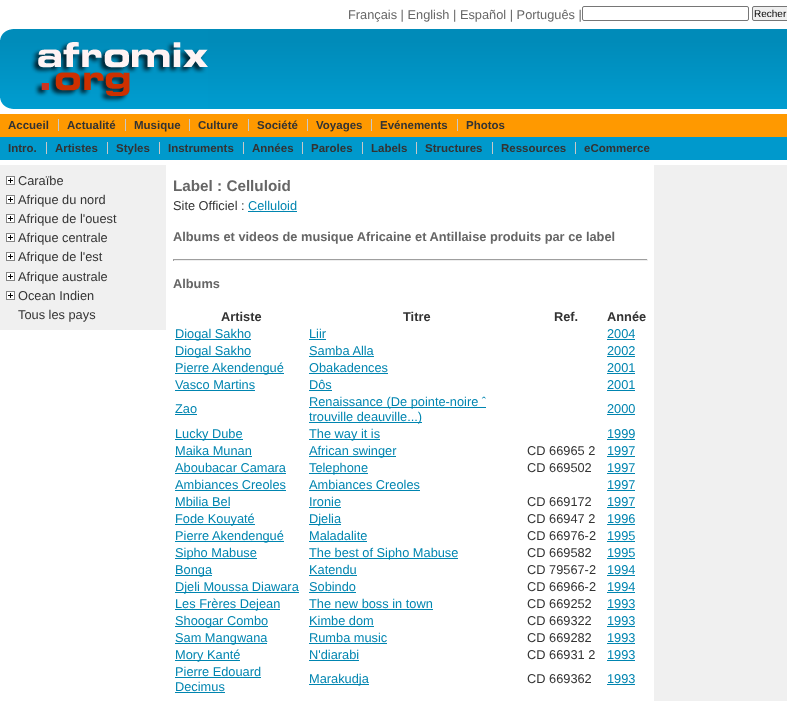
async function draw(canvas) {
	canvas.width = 787;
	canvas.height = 701;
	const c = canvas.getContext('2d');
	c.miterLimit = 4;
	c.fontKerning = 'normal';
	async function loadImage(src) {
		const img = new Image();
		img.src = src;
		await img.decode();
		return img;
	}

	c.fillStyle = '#fff';
	c.fillRect(0, 0, 787, 701);
	c.font = '12.8px Liberation Sans';
	c.fillStyle = '#666';
	c.fillText('Français | English | Español | Português |', 348, 19);
	c.beginPath();
	c.roundRect(582.5, 6.5, 166, 14, 1.5);
	c.strokeStyle = '#767676';
	c.stroke();
	c.fillStyle = '#efefef';
	c.beginPath();
	c.roundRect(752.5, 6.5, 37, 14, 1.5);
	c.fill();
	c.stroke();
	c.font = '10px Liberation Sans';
	c.fillStyle = '#000';
	c.fillText('Recher', 754, 17);
	c.drawImage(await loadImage('img1.png'), 208, 29, 579, 80);
	c.drawImage(await loadImage('img2.png'), 0, 29, 208, 80);
	c.fillStyle = '#f90';
	c.fillRect(0, 114, 787, 23);
	c.font = 'bold 11.5px Liberation Sans';
	c.fillStyle = '#333';
	c.fillText('Accueil', 8, 129);
	c.fillText('Actualité', 67, 129);
	c.fillStyle = '#c8c8c8';
	c.fillRect(58, 119, 1, 12);
	c.fillStyle = '#333';
	c.fillText('Musique', 134, 129);
	c.fillStyle = '#c8c8c8';
	c.fillRect(125, 119, 1, 12);
	c.fillStyle = '#333';
	c.fillText('Culture', 198, 129);
	c.fillStyle = '#c8c8c8';
	c.fillRect(189, 119, 1, 12);
	c.fillStyle = '#333';
	c.fillText('Société', 257, 129);
	c.fillStyle = '#c8c8c8';
	c.fillRect(248, 119, 1, 12);
	c.fillStyle = '#333';
	c.fillText('Voyages', 316, 129);
	c.fillStyle = '#c8c8c8';
	c.fillRect(307, 119, 1, 12);
	c.fillStyle = '#333';
	c.fillText('Evénements', 380, 129);
	c.fillStyle = '#c8c8c8';
	c.fillRect(371, 119, 1, 12);
	c.fillStyle = '#333';
	c.fillText('Photos', 466, 129);
	c.fillStyle = '#c8c8c8';
	c.fillRect(457, 119, 1, 12);
	c.fillStyle = '#09c';
	c.fillRect(0, 137, 787, 23);
	c.fillStyle = '#333';
	c.fillText('Intro.', 8, 152);
	c.fillText('Artistes', 55, 152);
	c.fillStyle = '#c8c8c8';
	c.fillRect(46, 142, 1, 12);
	c.fillStyle = '#333';
	c.fillText('Styles', 116, 152);
	c.fillStyle = '#c8c8c8';
	c.fillRect(107, 142, 1, 12);
	c.fillStyle = '#333';
	c.fillText('Instruments', 168, 152);
	c.fillStyle = '#c8c8c8';
	c.fillRect(159, 142, 1, 12);
	c.fillStyle = '#333';
	c.fillText('Années', 252, 152);
	c.fillStyle = '#c8c8c8';
	c.fillRect(243, 142, 1, 12);
	c.fillStyle = '#333';
	c.fillText('Paroles', 311, 152);
	c.fillStyle = '#c8c8c8';
	c.fillRect(302, 142, 1, 12);
	c.fillStyle = '#333';
	c.fillText('Labels', 371, 152);
	c.fillStyle = '#c8c8c8';
	c.fillRect(362, 142, 1, 12);
	c.fillStyle = '#333';
	c.fillText('Structures', 425, 152);
	c.fillStyle = '#c8c8c8';
	c.fillRect(416, 142, 1, 12);
	c.fillStyle = '#333';
	c.fillText('Ressources', 501, 152);
	c.fillStyle = '#c8c8c8';
	c.fillRect(492, 142, 1, 12);
	c.fillStyle = '#333';
	c.fillText('eCommerce', 584, 152);
	c.fillStyle = '#c8c8c8';
	c.fillRect(575, 142, 1, 12);
	c.fillStyle = '#f0f0f0';
	c.fillRect(0, 165, 166, 165);
	c.drawImage(await loadImage('img3.png'), 6, 176, 9, 9);
	c.font = '12.8px Liberation Sans';
	c.fillStyle = '#333';
	c.fillText('Caraïbe', 18, 185);
	c.drawImage(await loadImage('img3.png'), 6, 195, 9, 9);
	c.fillText('Afrique du nord', 18, 204);
	c.drawImage(await loadImage('img3.png'), 6, 214, 9, 9);
	c.fillText('Afrique de l\'ouest', 18, 223);
	c.drawImage(await loadImage('img3.png'), 6, 233, 9, 9);
	c.fillText('Afrique centrale', 18, 242);
	c.drawImage(await loadImage('img3.png'), 6, 252, 9, 9);
	c.fillText('Afrique de l\'est', 18, 261);
	c.drawImage(await loadImage('img3.png'), 6, 272, 9, 9);
	c.fillText('Afrique australe', 18, 281);
	c.drawImage(await loadImage('img3.png'), 6, 291, 9, 9);
	c.fillText('Ocean Indien', 18, 300);
	c.fillText('Tous les pays', 18, 319);
	c.font = 'bold 15.25px Liberation Sans';
	c.fillStyle = '#666';
	c.fillText('Label : Celluloid', 173, 191);
	c.font = '12.8px Liberation Sans';
	c.fillStyle = '#333';
	c.fillText('Site Officiel :', 173, 210);
	c.fillStyle = '#0085b0';
	c.fillText('Celluloid', 248, 210);
	c.fillRect(248, 211, 49, 1);
	c.font = 'bold 12.8px Liberation Sans';
	c.fillStyle = '#666';
	c.fillText('Albums et videos de musique Africaine et Antillaise produits par ce label', 173, 241);
	for (const [x, y, w, h, color] of [
		[173, 259, 475, 1, '#9f9f9f'],
		[647, 259, 1, 2, '#eee'],
		[173, 260, 475, 1, '#eee'],
		[173, 259, 1, 2, '#9f9f9f'],
	]) {
		c.fillStyle = color;
		c.fillRect(x, y, w, h);
	}
	c.fillStyle = '#666';
	c.fillText('Albums', 173, 288);
	c.fillStyle = '#333';
	for (const [text, x, y] of [
		['Artiste', 221, 321],
		['Titre', 403, 321],
		['Ref.', 554, 321],
		['Année', 607, 321],
	]) {
		c.fillText(text, x, y);
	}
	c.fillStyle = '#0085b0';
	c.fillRect(175, 339, 76, 1);
	c.font = '12.8px Liberation Sans';
	c.fillText('Diogal Sakho', 175, 338);
	c.fillText('Liir', 309, 338);
	c.fillRect(309, 339, 17, 1);
	c.fillText('2004', 607, 338);
	c.fillRect(607, 339, 28, 1);
	c.fillRect(175, 356, 76, 1);
	c.fillText('Diogal Sakho', 175, 355);
	c.fillText('Samba Alla', 309, 355);
	c.fillRect(309, 356, 65, 1);
	c.fillText('2002', 607, 355);
	c.fillRect(607, 356, 28, 1);
	c.fillRect(175, 373, 109, 1);
	c.fillText('Pierre Akendengué', 175, 372);
	c.fillText('Obakadences', 309, 372);
	c.fillRect(309, 373, 79, 1);
	c.fillText('2001', 607, 372);
	c.fillRect(607, 373, 28, 1);
	c.fillText('Vasco Martins', 175, 389);
	c.fillRect(175, 390, 80, 1);
	c.fillText('Dôs', 309, 389);
	c.fillRect(309, 390, 23, 1);
	c.fillText('2001', 607, 389);
	c.fillRect(607, 390, 28, 1);
	c.fillText('Zao', 175, 413);
	c.fillRect(175, 414, 22, 1);
	c.fillRect(309, 407, 177, 1);
	c.fillText('Renaissance (De pointe-noire ˆ', 309, 406);
	c.fillRect(309, 422, 113, 1);
	c.fillText('trouville deauville...)', 309, 421);
	c.fillText('2000', 607, 413);
	c.fillRect(607, 414, 28, 1);
	c.fillRect(175, 439, 68, 1);
	c.fillText('Lucky Dube', 175, 438);
	c.fillRect(309, 439, 71, 1);
	c.fillText('The way it is', 309, 438);
	c.fillText('1999', 607, 438);
	c.fillRect(607, 439, 28, 1);
	c.fillText('Maika Munan', 175, 455);
	c.fillRect(175, 456, 77, 1);
	c.fillRect(309, 456, 87, 1);
	c.fillText('African swinger', 309, 455);
	c.fillStyle = '#333';
	c.fillText('CD 66965 2', 527, 455);
	c.fillStyle = '#0085b0';
	c.fillText('1997', 607, 455);
	c.fillRect(607, 456, 28, 1);
	c.fillText('Aboubacar Camara', 175, 472);
	c.fillRect(175, 473, 111, 1);
	c.fillRect(309, 473, 59, 1);
	c.fillText('Telephone', 309, 472);
	c.fillStyle = '#333';
	c.fillText('CD 669502', 527, 472);
	c.fillStyle = '#0085b0';
	c.fillText('1997', 607, 472);
	c.fillRect(607, 473, 28, 1);
	c.fillText('Ambiances Creoles', 175, 489);
	c.fillRect(175, 490, 111, 1);
	c.fillText('Ambiances Creoles', 309, 489);
	c.fillRect(309, 490, 111, 1);
	c.fillText('1997', 607, 489);
	c.fillRect(607, 490, 28, 1);
	c.fillText('Mbilia Bel', 175, 506);
	c.fillRect(175, 507, 55, 1);
	c.fillText('Ironie', 309, 506);
	c.fillRect(309, 507, 32, 1);
	c.fillStyle = '#333';
	c.fillText('CD 669172', 527, 506);
	c.fillStyle = '#0085b0';
	c.fillText('1997', 607, 506);
	c.fillRect(607, 507, 28, 1);
	c.fillRect(175, 524, 80, 1);
	c.fillText('Fode Kouyaté', 175, 523);
	c.fillRect(309, 524, 32, 1);
	c.fillText('Djelia', 309, 523);
	c.fillStyle = '#333';
	c.fillText('CD 66947 2', 527, 523);
	c.fillStyle = '#0085b0';
	c.fillText('1996', 607, 523);
	c.fillRect(607, 524, 28, 1);
	c.fillRect(175, 541, 109, 1);
	c.fillText('Pierre Akendengué', 175, 540);
	c.fillText('Maladalite', 309, 540);
	c.fillRect(309, 541, 58, 1);
	c.fillStyle = '#333';
	c.fillText('CD 66976-2', 527, 540);
	c.fillStyle = '#0085b0';
	c.fillText('1995', 607, 540);
	c.fillRect(607, 541, 28, 1);
	c.fillRect(175, 558, 82, 1);
	c.fillText('Sipho Mabuse', 175, 557);
	c.fillRect(309, 558, 149, 1);
	c.fillText('The best of Sipho Mabuse', 309, 557);
	c.fillStyle = '#333';
	c.fillText('CD 669582', 527, 557);
	c.fillStyle = '#0085b0';
	c.fillText('1995', 607, 557);
	c.fillRect(607, 558, 28, 1);
	c.fillRect(175, 575, 37, 1);
	c.fillText('Bonga', 175, 574);
	c.fillText('Katendu', 309, 574);
	c.fillRect(309, 575, 48, 1);
	c.fillStyle = '#333';
	c.fillText('CD 79567-2', 527, 574);
	c.fillStyle = '#0085b0';
	c.fillText('1994', 607, 574);
	c.fillRect(607, 575, 28, 1);
	c.fillRect(175, 592, 124, 1);
	c.fillText('Djeli Moussa Diawara', 175, 591);
	c.fillText('Sobindo', 309, 591);
	c.fillRect(309, 592, 47, 1);
	c.fillStyle = '#333';
	c.fillText('CD 66966-2', 527, 591);
	c.fillStyle = '#0085b0';
	c.fillText('1994', 607, 591);
	c.fillRect(607, 592, 28, 1);
	c.fillRect(175, 609, 105, 1);
	c.fillText('Les Frères Dejean', 175, 608);
	c.fillText('The new boss in town', 309, 608);
	c.fillRect(309, 609, 124, 1);
	c.fillStyle = '#333';
	c.fillText('CD 669252', 527, 608);
	c.fillStyle = '#0085b0';
	c.fillText('1993', 607, 608);
	c.fillRect(607, 609, 28, 1);
	c.fillRect(175, 626, 93, 1);
	c.fillText('Shoogar Combo', 175, 625);
	c.fillText('Kimbe dom', 309, 625);
	c.fillRect(309, 626, 65, 1);
	c.fillStyle = '#333';
	c.fillText('CD 669322', 527, 625);
	c.fillStyle = '#0085b0';
	c.fillText('1993', 607, 625);
	c.fillRect(607, 626, 28, 1);
	c.fillRect(175, 643, 92, 1);
	c.fillText('Sam Mangwana', 175, 642);
	c.fillText('Rumba music', 309, 642);
	c.fillRect(309, 643, 78, 1);
	c.fillStyle = '#333';
	c.fillText('CD 669282', 527, 642);
	c.fillStyle = '#0085b0';
	c.fillText('1993', 607, 642);
	c.fillRect(607, 643, 28, 1);
	c.fillRect(175, 660, 65, 1);
	c.fillText('Mory Kanté', 175, 659);
	c.fillText('N\'diarabi', 309, 659);
	c.fillRect(309, 660, 50, 1);
	c.fillStyle = '#333';
	c.fillText('CD 66931 2', 527, 659);
	c.fillStyle = '#0085b0';
	c.fillText('1993', 607, 659);
	c.fillRect(607, 660, 28, 1);
	c.fillText('Pierre Edouard', 175, 676);
	c.fillRect(175, 677, 86, 1);
	c.fillText('Decimus', 175, 691);
	c.fillRect(175, 692, 50, 1);
	c.fillRect(309, 684, 60, 1);
	c.fillText('Marakudja', 309, 683);
	c.fillStyle = '#333';
	c.fillText('CD 669362', 527, 683);
	c.fillStyle = '#0085b0';
	c.fillText('1993', 607, 683);
	c.fillRect(607, 684, 28, 1);
	c.fillStyle = '#f0f0f0';
	c.fillRect(654, 165, 133, 536);
}

draw(document.querySelector('canvas'));
